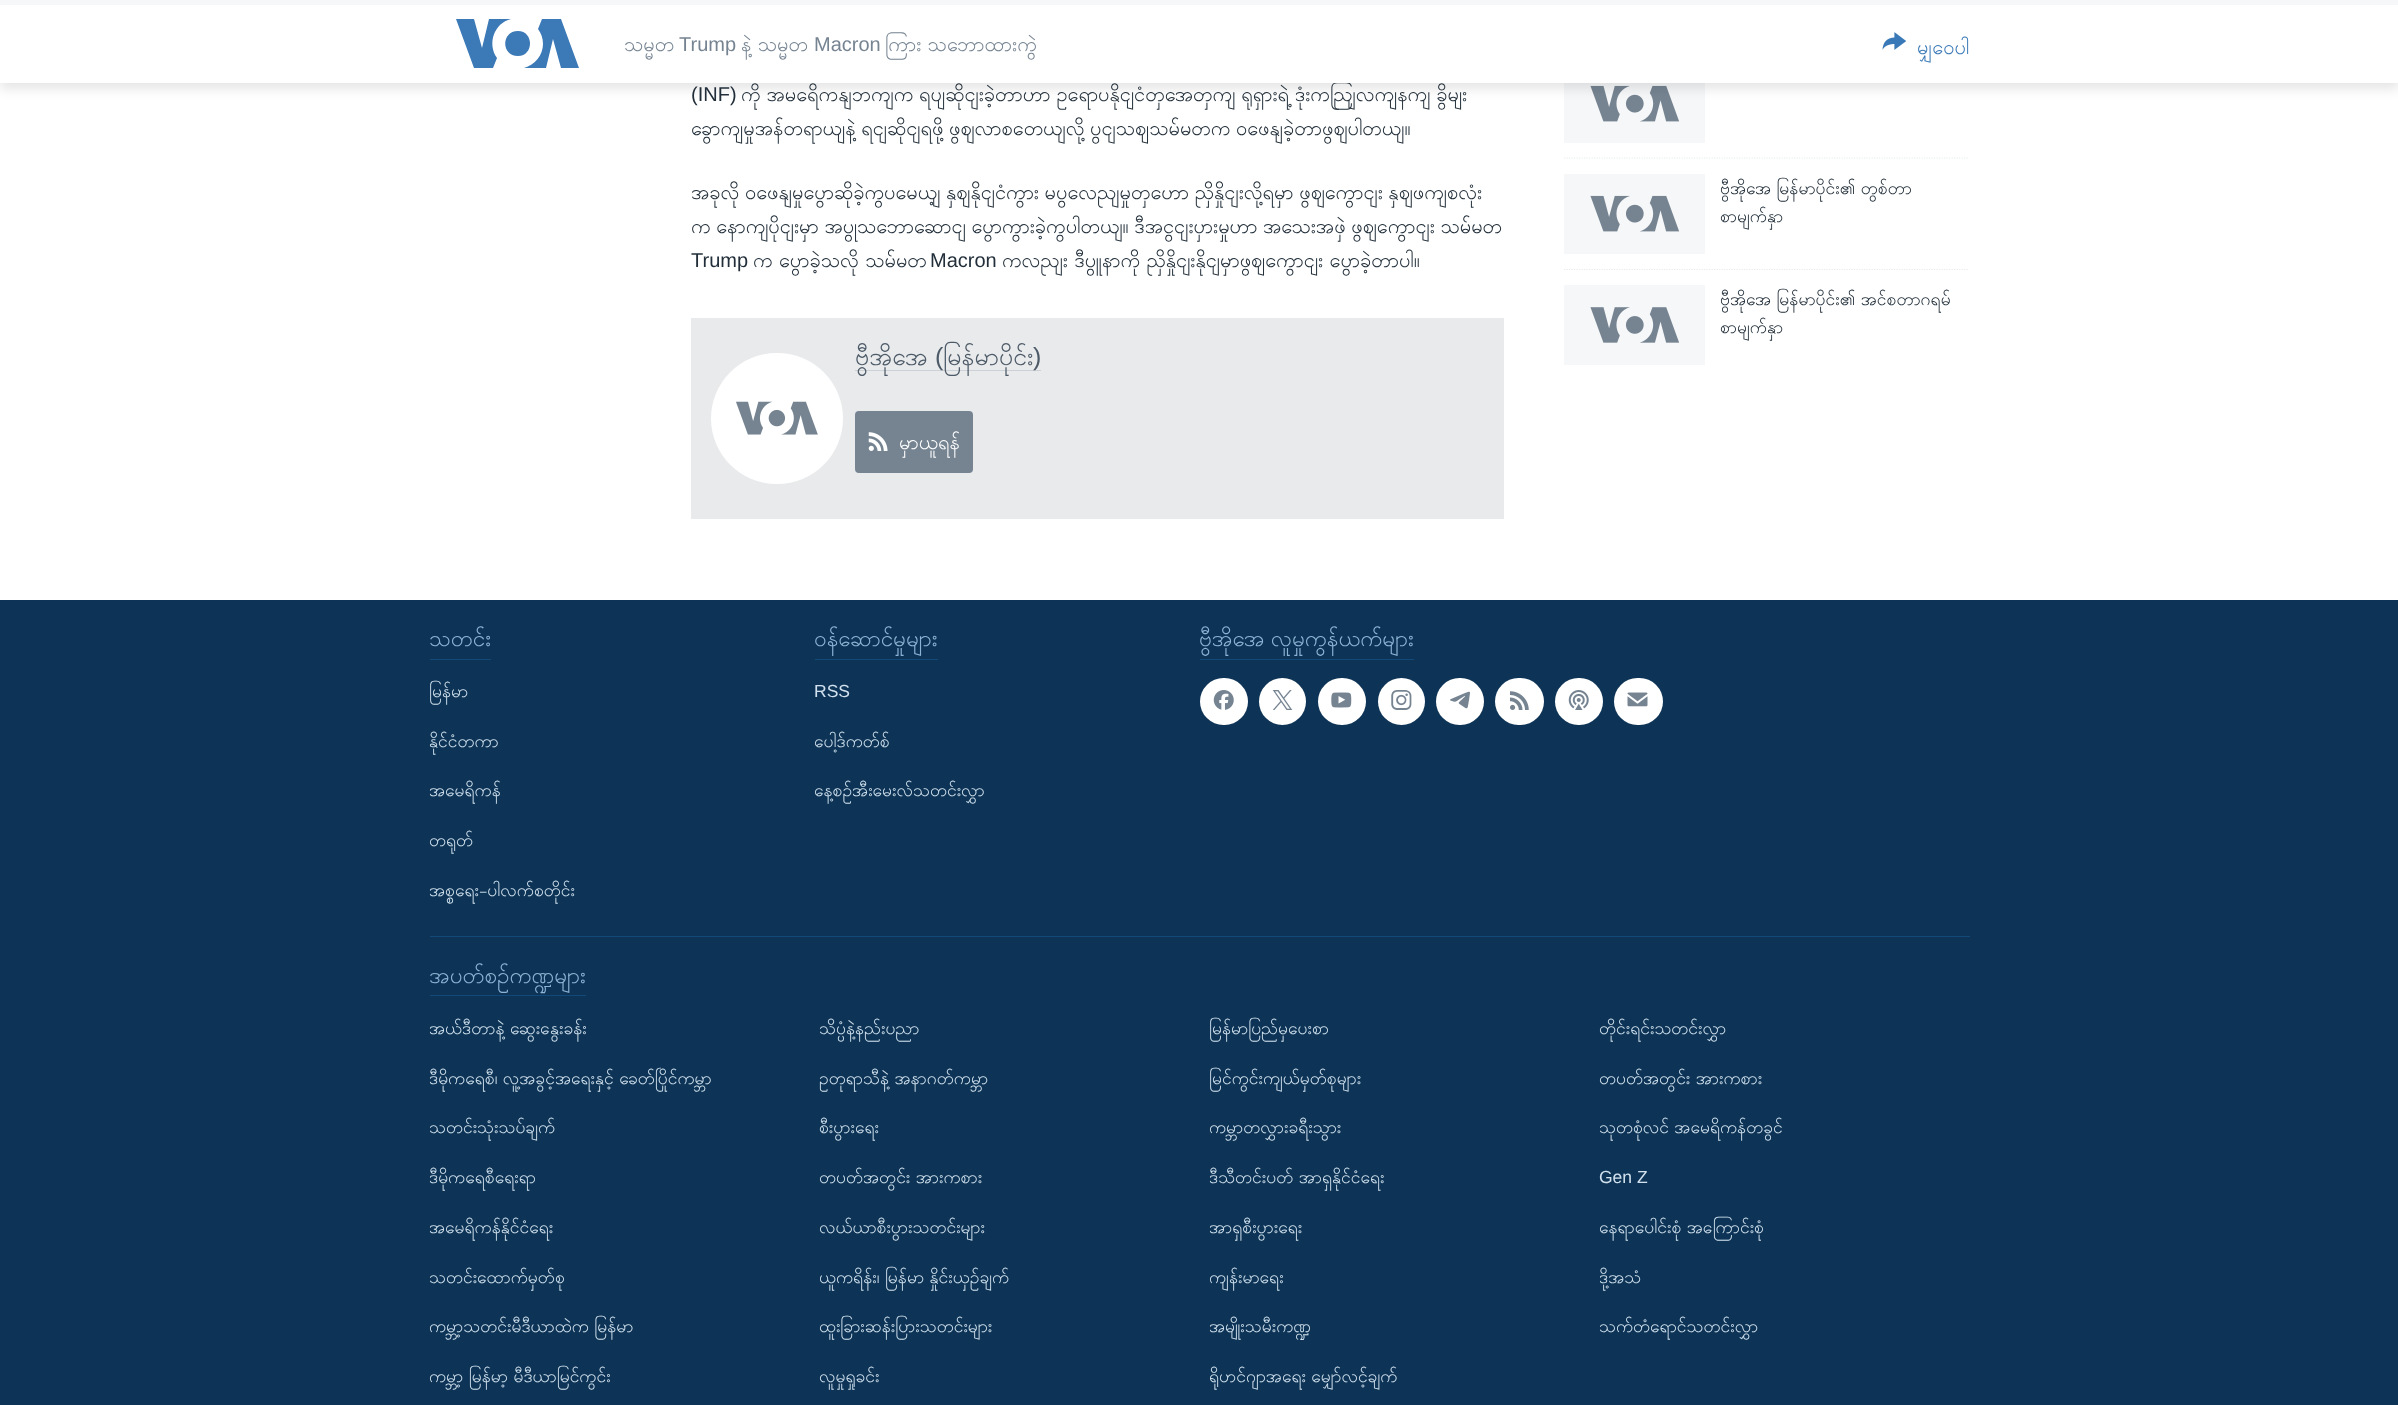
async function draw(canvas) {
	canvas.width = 2398;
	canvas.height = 1405;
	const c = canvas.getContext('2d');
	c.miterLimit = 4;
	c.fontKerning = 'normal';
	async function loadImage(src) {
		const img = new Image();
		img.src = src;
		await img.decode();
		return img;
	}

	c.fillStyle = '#fff';
	c.fillRect(0, 0, 2398, 1405);
	c.fillStyle = '#f6f7f8';
	c.fillRect(1564, 83, 141, 60);
	c.drawImage(await loadImage('img4.png'), 1590, 85, 90, 37);
	c.fillStyle = '#0000001a';
	c.filter = 'blur(6px)';
	c.beginPath();
	c.rect(0, 6, 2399, 83);
	c.fill();
	c.filter = 'none';
	c.font = '20px Liberation Sans';
	c.fillStyle = '#222f3a';
	c.fillText('(INF)', 691, 101);
	c.wordSpacing = '-1.5px';
	c.font = '20px Padauk';
	c.fillText('ကို အမရေိကနျဘကျက ရပျဆိုငျးခဲ့တာဟာ ဥရောပနိုငျငံတှအေတှကျ ရုရှားရဲ့ ဒုံးကညြျလကျနကျ ခွိမျး', 741, 101);
	c.fillStyle = '#fff';
	c.fillRect(0, 5, 2398, 78);
	c.fillStyle = '#f6f7f8';
	c.fillRect(0, 0, 2398, 5);
	c.fillStyle = '#3b79b7';
	c.beginPath();
	c.moveTo(497, 58);
	c.lineTo(493, 68);
	c.lineTo(474, 68);
	c.lineTo(456, 19);
	c.lineTo(474, 19);
	c.lineTo(482, 48);
	c.lineTo(489, 19);
	c.lineTo(511, 19);
	c.bezierCurveTo(494, 23, 487, 44, 497, 58);
	c.closePath();
	c.moveTo(518, 31);
	c.bezierCurveTo(501, 31, 501, 56, 518, 56);
	c.bezierCurveTo(534, 56, 534, 31, 518, 31);
	c.closePath();
	c.moveTo(543, 44);
	c.bezierCurveTo(543, 55, 535, 65, 524, 68);
	c.lineTo(546, 68);
	c.lineTo(553, 39);
	c.lineTo(561, 68);
	c.lineTo(579, 68);
	c.lineTo(561, 19);
	c.lineTo(542, 19);
	c.lineTo(538, 29);
	c.bezierCurveTo(541, 33, 543, 38, 543, 44);
	c.closePath();
	c.fill();
	c.wordSpacing = '0px';
	c.fillStyle = '#768492';
	c.fillText('သမ္မတ', 624, 51);
	c.font = '20px Liberation Sans';
	c.fillText('Trump', 679, 51);
	c.wordSpacing = '-1px';
	c.font = '20px Padauk';
	c.fillText('နဲ့ သမ္မတ', 741, 51);
	c.wordSpacing = '0px';
	c.font = '20px Liberation Sans';
	c.fillText('Macron', 814, 51);
	c.wordSpacing = '-1px';
	c.font = '20px Padauk';
	c.fillText('ကြား သဘောထားကွဲ', 885, 51);
	c.drawImage(await loadImage('img1.png'), 1882, 32, 25, 18);
	c.wordSpacing = '0px';
	c.fillStyle = '#3a79b7';
	c.fillText('မျှဝေပါ', 1917, 54);
	c.wordSpacing = '-1.75px';
	c.fillStyle = '#222f3a';
	for (const [text, x, y] of [
		['ခွောကျမှုအန်တရာယျနဲ့ ရငျဆိုငျရဖို့ ဖွဈလာစတေယျလို့ ပွငျသဈသမ်မတက ဝဖေနျခဲ့တာဖွဈပါတယျ။', 691, 135],
		['အခုလို ဝဖေနျမှုပွောဆိုခဲ့ကွပမေယ့ျ နှဈနိုငျငံကွား မပွလေညျမှုတှဟော ညှိနှိုငျးလို့ရမှာ ဖွဈကွောငျး နှဈဖကျစလုံး', 691, 199],
		['က နောကျပိုငျးမှာ အပွုသဘောဆောငျ ပွောကွားခဲ့ကွပါတယျ။ ဒီအငွငျးပှားမှုဟာ အသေးအဖှဲ ဖွဈကွောငျး သမ်မတ', 691, 233],
	]) {
		c.fillText(text, x, y);
	}
	c.wordSpacing = '0px';
	c.font = '20px Liberation Sans';
	c.fillText('Trump', 691, 267);
	c.wordSpacing = '-1px';
	c.font = '20px Padauk';
	c.fillText('က ပွောခဲ့သလို သမ်မတ', 753, 267);
	c.wordSpacing = '0px';
	c.font = '20px Liberation Sans';
	c.fillText('Macron', 930, 267);
	c.wordSpacing = '-1px';
	c.font = '20px Padauk';
	c.fillText('ကလညျး ဒီပွူနာကို ညှိနှိုငျးနိုငျမှာဖွဈကွောငျး ပွောခဲ့တာပါ။', 1002, 267);
	c.fillStyle = '#e8eaec';
	c.fillRect(691, 318, 813, 201);
	c.fillStyle = '#fff';
	c.beginPath();
	c.roundRect(711, 353, 132, 131, 65.5);
	c.fill();
	c.drawImage(await loadImage('img2.png'), 736, 401, 82, 34);
	c.fillStyle = '#cbd1d6';
	c.fillRect(855, 370, 186, 1);
	c.wordSpacing = '0px';
	c.font = '25px Padauk';
	c.fillStyle = '#4d5a67';
	c.fillText('ဗွီအိုအေ', 855, 365);
	c.font = '25px Liberation Sans';
	c.fillText('(', 935, 365);
	c.font = '25px Padauk';
	c.fillText('မြန်မာပိုင်း', 943, 365);
	c.font = '25px Liberation Sans';
	c.fillText(')', 1033, 365);
	c.fillStyle = '#768492';
	c.beginPath();
	c.roundRect(855, 411, 118, 62, 4);
	c.fill();
	c.drawImage(await loadImage('img3.png'), 868, 432, 20, 19);
	c.font = '20px Padauk';
	c.fillStyle = '#fff';
	c.fillText('မှာယူရန်', 899, 449);
	c.beginPath();
	c.moveTo(1564, 158);
	c.lineTo(1969, 158);
	c.strokeStyle = '#e8eaec';
	c.lineWidth = 1.2;
	c.setLineDash([1.25, 1.25]);
	c.stroke();
	c.fillStyle = '#f6f7f8';
	c.fillRect(1564, 174, 141, 80);
	c.drawImage(await loadImage('img4.png'), 1590, 195, 90, 37);
	c.wordSpacing = '-1px';
	c.font = '17.5px Padauk';
	c.fillStyle = '#222f3a';
	c.fillText('ဗွီအိုအေ မြန်မာပိုင်း၏ တွစ်တာ', 1720, 194);
	c.wordSpacing = '0px';
	c.fillText('စာမျက်နှာ', 1720, 222);
	c.beginPath();
	c.moveTo(1564, 269.5);
	c.lineTo(1969, 269.5);
	c.stroke();
	c.fillStyle = '#f6f7f8';
	c.fillRect(1564, 285, 141, 80);
	c.drawImage(await loadImage('img5.png'), 1590, 307, 90, 36);
	c.wordSpacing = '-1px';
	c.fillStyle = '#222f3a';
	c.fillText('ဗွီအိုအေ မြန်မာပိုင်း၏ အင်စတာဂရမ်', 1720, 305);
	c.wordSpacing = '0px';
	c.fillText('စာမျက်နှာ', 1720, 333);
	c.fillStyle = '#0d3456';
	c.fillRect(0, 600, 2398, 805);
	c.fillStyle = '#134976';
	c.fillRect(430, 659, 61, 1);
	c.font = '22.5px Padauk';
	c.fillStyle = '#8db3d4';
	c.fillText('သတင်း', 429, 646);
	c.font = '17.5px Padauk';
	c.fillStyle = '#d1e1ee';
	for (const [text, x, y] of [
		['မြန်မာ', 429, 697],
		['နိုင်ငံတကာ', 429, 747],
		['အမေရိကန်', 429, 796],
		['တရုတ်', 429, 846],
		['အစ္စရေး-ပါလက်စတိုင်း', 429, 896],
	]) {
		c.fillText(text, x, y);
	}
	c.fillStyle = '#134976';
	c.fillRect(815, 659, 123, 1);
	c.font = '22.5px Padauk';
	c.fillStyle = '#8db3d4';
	c.fillText('၀န်ဆောင်မှုများ', 814, 646);
	c.font = '17.5px Liberation Sans';
	c.fillStyle = '#d1e1ee';
	c.fillText('RSS', 814, 697);
	c.font = '17.5px Padauk';
	c.fillText('ပေါ့ဒ်ကတ်စ်', 814, 747);
	c.fillText('နေ့စဉ်အီးမေးလ်သတင်းလွှာ', 814, 796);
	c.fillStyle = '#134976';
	c.fillRect(1200, 659, 214, 1);
	c.wordSpacing = '-2px';
	c.font = '22.5px Padauk';
	c.fillStyle = '#8db3d4';
	c.fillText('ဗွီအိုအေ လူမှုကွန်ယက်များ', 1199, 646);
	c.fillStyle = '#fff';
	c.beginPath();
	c.roundRect(1200, 678, 48, 47, 23.5);
	c.fill();
	c.drawImage(await loadImage('img6.png'), 1213, 690, 21, 20);
	c.beginPath();
	c.arc(1282.5, 701.5, 23.5, 0, 2 * Math.PI);
	c.fill();
	c.drawImage(await loadImage('img7.png'), 1272, 690, 21, 20);
	c.beginPath();
	c.roundRect(1318, 678, 48, 47, 23.5);
	c.fill();
	c.drawImage(await loadImage('img8.png'), 1331, 692, 21, 16);
	c.beginPath();
	c.arc(1401.5, 701.5, 23.5, 0, 2 * Math.PI);
	c.fill();
	c.drawImage(await loadImage('img9.png'), 1391, 690, 21, 20);
	c.beginPath();
	c.roundRect(1436, 678, 48, 47, 23.5);
	c.fill();
	c.drawImage(await loadImage('img10.png'), 1450, 691, 20, 18);
	c.beginPath();
	c.roundRect(1495, 678, 49, 47, 23.5);
	c.fill();
	c.drawImage(await loadImage('img11.png'), 1510, 691, 19, 19);
	c.beginPath();
	c.roundRect(1555, 678, 48, 47, 23.5);
	c.fill();
	c.drawImage(await loadImage('img12.png'), 1568, 690, 21, 20);
	c.beginPath();
	c.roundRect(1614, 678, 49, 47, 23.5);
	c.fill();
	c.drawImage(await loadImage('img13.png'), 1627, 692, 21, 15);
	c.fillStyle = '#134976';
	c.fillRect(430, 936, 1540, 1);
	c.fillRect(430, 995, 156, 1);
	c.wordSpacing = '0px';
	c.fillStyle = '#8db3d4';
	c.fillText('အပတ်စဉ်ကဏ္ဍများ', 429, 983);
	c.wordSpacing = '-1px';
	c.font = '17.5px Padauk';
	c.fillStyle = '#d1e1ee';
	c.fillText('အယ်ဒီတာနဲ့ ဆွေးနွေးခန်း', 429, 1034);
	c.wordSpacing = '0px';
	for (const [text, x, y] of [
		['သိပ္ပံနဲ့နည်းပညာ', 819, 1034],
		['မြန်မာပြည်မှပေးစာ', 1209, 1034],
		['တိုင်းရင်းသတင်းလွှာ', 1599, 1034],
	]) {
		c.fillText(text, x, y);
	}
	c.wordSpacing = '-1px';
	c.fillText('ဒီမိုကရေစီ၊ လူ့အခွင့်အရေးနှင့် ခေတ်ပြိုင်ကမ္ဘာ', 429, 1084);
	c.fillText('ဥတုရာသီနဲ့ အနာဂတ်ကမ္ဘာ', 819, 1084);
	c.wordSpacing = '0px';
	c.fillText('မြင်ကွင်းကျယ်မှတ်စုများ', 1209, 1084);
	c.wordSpacing = '-1px';
	c.fillText('တပတ်အတွင်း အားကစား', 1599, 1084);
	c.wordSpacing = '0px';
	for (const [text, x, y] of [
		['သတင်းသုံးသပ်ချက်', 429, 1133],
		['စီးပွားရေး', 819, 1133],
		['ကမ္ဘာတလွှားခရီးသွား', 1209, 1133],
	]) {
		c.fillText(text, x, y);
	}
	c.wordSpacing = '-1px';
	c.fillText('သုတစုံလင် အမေရိကန်တခွင်', 1599, 1133);
	c.wordSpacing = '0px';
	c.fillText('ဒီမိုကရေစီရေးရာ', 429, 1183);
	c.wordSpacing = '-1px';
	c.fillText('တပတ်အတွင်း အားကစား', 819, 1183);
	c.fillText('ဒီသီတင်းပတ် အာရှနိုင်ငံရေး', 1209, 1183);
	c.wordSpacing = '0px';
	c.font = '17.5px Liberation Sans';
	c.fillText('Gen Z', 1599, 1183);
	c.font = '17.5px Padauk';
	for (const [text, x, y] of [
		['အမေရိကန်နိုင်ငံရေး', 429, 1233],
		['လယ်ယာစီးပွားသတင်းများ', 819, 1233],
		['အာရှစီးပွားရေး', 1209, 1233],
	]) {
		c.fillText(text, x, y);
	}
	c.wordSpacing = '-1px';
	c.fillText('နေရာပေါင်းစုံ အကြောင်းစုံ', 1599, 1233);
	c.wordSpacing = '0px';
	c.fillText('သတင်းထောက်မှတ်စု', 429, 1283);
	c.wordSpacing = '-1px';
	c.fillText('ယူကရိန်း၊ မြန်မာ နှိုင်းယှဉ်ချက်', 819, 1283);
	c.wordSpacing = '0px';
	c.fillText('ကျန်းမာရေး', 1209, 1283);
	c.fillText('ဒို့အသံ', 1599, 1283);
	c.wordSpacing = '-1px';
	c.fillText('ကမ္ဘာ့သတင်းမီဒီယာထဲက မြန်မာ', 429, 1332);
	c.wordSpacing = '0px';
	for (const [text, x, y] of [
		['ထူးခြားဆန်းပြားသတင်းများ', 819, 1332],
		['အမျိုးသမီးကဏ္ဍ', 1209, 1332],
		['သက်တံရောင်သတင်းလွှာ', 1599, 1332],
	]) {
		c.fillText(text, x, y);
	}
	c.wordSpacing = '-1px';
	c.fillText('ကမ္ဘာ့ မြန်မာ့ မီဒီယာမြင်ကွင်း', 429, 1382);
	c.wordSpacing = '0px';
	c.fillText('လူမှုရှုခင်း', 819, 1382);
	c.wordSpacing = '-1px';
	c.fillText('ရိုဟင်ဂျာအရေး မျှော်လင့်ချက်', 1209, 1382);
}

draw(document.querySelector('canvas'));
